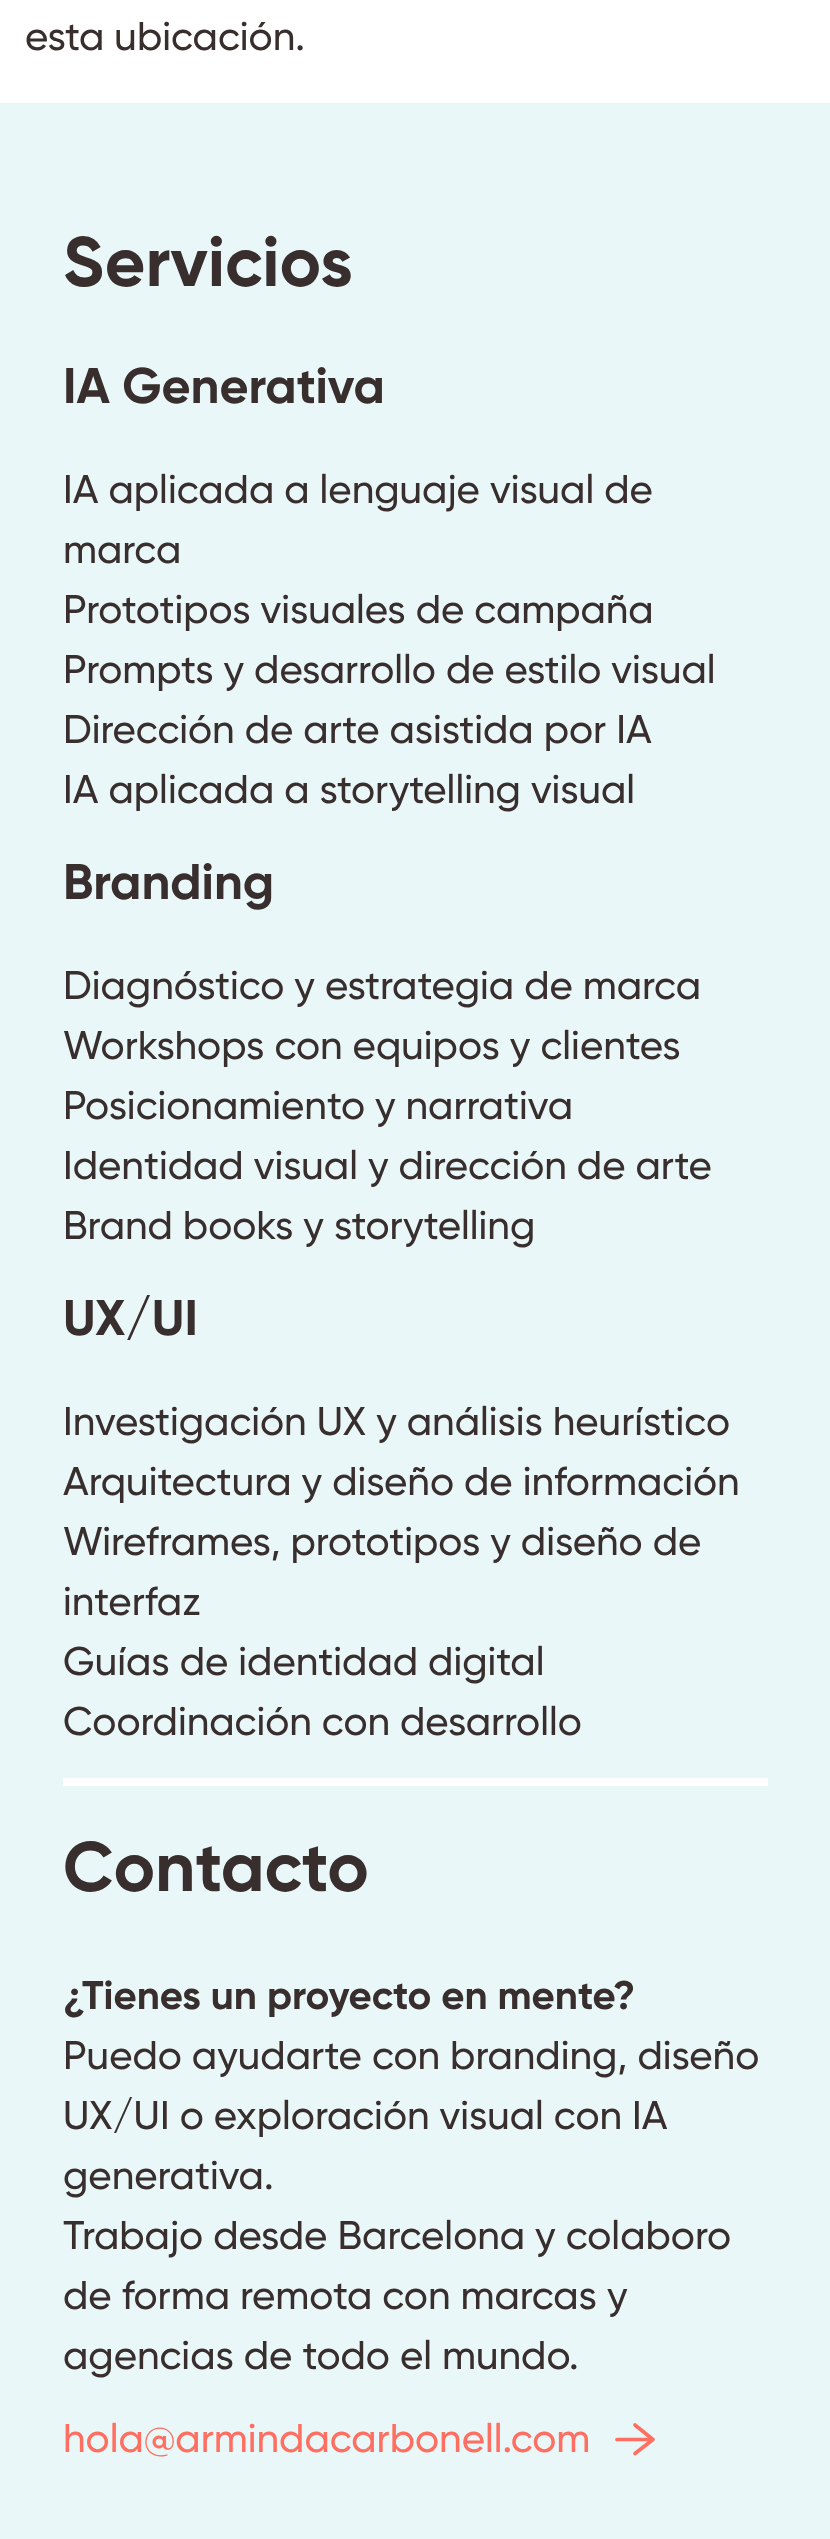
async function draw(canvas) {
	canvas.width = 830;
	canvas.height = 2539;
	const c = canvas.getContext('2d');
	c.miterLimit = 4;
	c.fontKerning = 'normal';

	c.fillStyle = '#fff';
	c.fillRect(0, 0, 830, 2539);
	c.font = '500 40px Gilroy';
	c.fillStyle = '#382e2d';
	c.fillText('esta ubicación.', 25, 50);
	c.fillStyle = '#e9f7f8';
	c.fillRect(0, 103, 830, 2436);
	c.font = 'bold 70px Gilroy';
	c.fillStyle = '#382e2d';
	c.fillText('Servicios', 63, 286);
	c.font = 'bold 50px Gilroy';
	c.fillText('IA Generativa', 63, 403);
	c.font = '500 40px Gilroy';
	for (const [text, x, y] of [
		['IA aplicada a lenguaje visual de', 63, 503],
		['marca', 63, 563],
		['Prototipos visuales de campaña', 63, 623],
		['Prompts y desarrollo de estilo visual', 63, 683],
		['Dirección de arte asistida por IA', 63, 743],
		['IA aplicada a storytelling visual', 63, 803],
	]) {
		c.fillText(text, x, y);
	}
	c.font = 'bold 50px Gilroy';
	c.fillText('Branding', 63, 899);
	c.font = '500 40px Gilroy';
	for (const [text, x, y] of [
		['Diagnóstico y estrategia de marca', 63, 999],
		['Workshops con equipos y clientes', 63, 1059],
		['Posicionamiento y narrativa', 63, 1119],
		['Identidad visual y dirección de arte', 63, 1179],
		['Brand books y storytelling', 63, 1239],
	]) {
		c.fillText(text, x, y);
	}
	c.font = 'bold 50px Gilroy';
	c.fillText('UX/UI', 63, 1335);
	c.font = '500 40px Gilroy';
	for (const [text, x, y] of [
		['Investigación UX y análisis heurístico', 63, 1435],
		['Arquitectura y diseño de información', 63, 1495],
		['Wireframes, prototipos y diseño de', 63, 1555],
		['interfaz', 63, 1615],
		['Guías de identidad digital', 63, 1675],
		['Coordinación con desarrollo', 63, 1735],
	]) {
		c.fillText(text, x, y);
	}
	c.fillStyle = '#fff';
	c.fillRect(63, 1778, 705, 8);
	c.font = 'bold 70px Gilroy';
	c.fillStyle = '#382e2d';
	c.fillText('Contacto', 63, 1891);
	c.font = 'bold 40px Gilroy';
	c.fillText('¿Tienes un proyecto en mente?', 63, 2009);
	c.font = '500 40px Gilroy';
	for (const [text, x, y] of [
		['Puedo ayudarte con branding, diseño', 63, 2069],
		['UX/UI o exploración visual con IA', 63, 2129],
		['generativa.', 63, 2189],
		['Trabajo desde Barcelona y colaboro', 63, 2249],
		['de forma remota con marcas y', 63, 2309],
		['agencias de todo el mundo.', 63, 2369],
	]) {
		c.fillText(text, x, y);
	}
	c.fillStyle = '#ff6f61';
	c.fillText('hola@armindacarbonell.com', 63, 2452);
	c.beginPath();
	c.moveTo(617, 2439.5);
	c.lineTo(652.5, 2439.5);
	c.moveTo(635, 2453.5);
	c.lineTo(653, 2439.5);
	c.lineTo(635, 2425);
	c.strokeStyle = '#ff7061';
	c.lineWidth = 3.7;
	c.lineCap = 'round';
	c.lineJoin = 'round';
	c.stroke();
}

draw(document.querySelector('canvas'));
